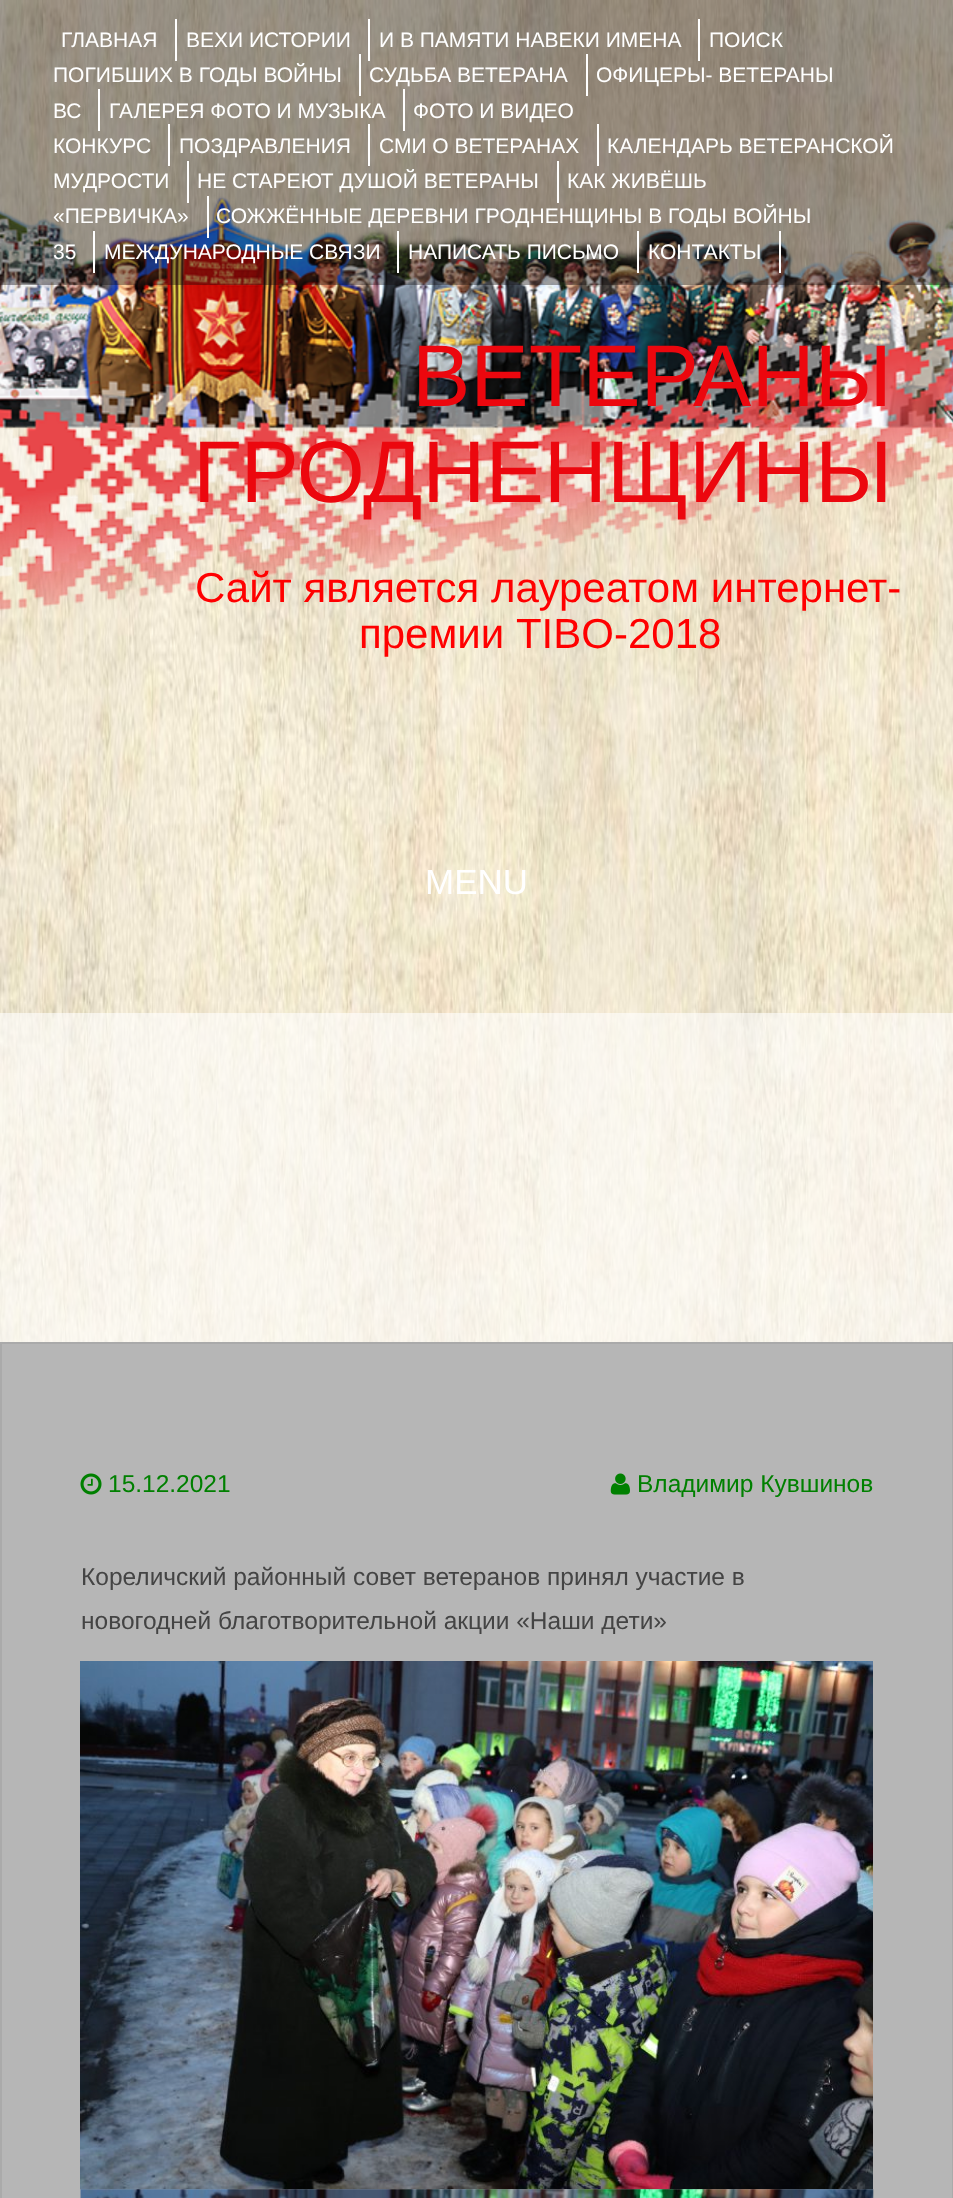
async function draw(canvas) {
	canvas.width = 953;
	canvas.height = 2198;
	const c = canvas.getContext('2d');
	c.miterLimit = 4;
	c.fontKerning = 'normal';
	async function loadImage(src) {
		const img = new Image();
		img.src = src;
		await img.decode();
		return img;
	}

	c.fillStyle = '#fff';
	c.fillRect(0, 0, 953, 2198);
	c.drawImage(await loadImage('img1.png'), 0, 0, 953, 1342);
	c.drawImage(await loadImage('img6.png'), 0, 196, 953, 415);
	c.fillStyle = '#120d0c66';
	c.fillRect(0, 0, 953, 285);
	c.font = '21px Liberation Sans';
	c.fillStyle = '#fff';
	c.fillText('ГЛАВНАЯ', 61, 47);
	c.fillRect(175, 19, 2, 42);
	c.fillText('ВЕХИ ИСТОРИИ', 186, 47);
	c.fillRect(368, 19, 2, 42);
	c.fillText('И В ПАМЯТИ НАВЕКИ ИМЕНА', 379, 47);
	c.fillRect(698, 19, 2, 42);
	c.fillText('ПОИСК', 709, 47);
	c.fillText('ПОГИБШИХ В ГОДЫ ВОЙНЫ', 53, 82);
	c.fillRect(359, 54, 2, 42);
	c.fillText('СУДЬБА ВЕТЕРАНА', 369, 82);
	c.fillRect(586, 54, 2, 42);
	c.fillText('ОФИЦЕРЫ- ВЕТЕРАНЫ', 596, 82);
	c.fillText('ВС', 53, 118);
	c.fillRect(98, 89, 2, 42);
	c.fillText('ГАЛЕРЕЯ ФОТО И МУЗЫКА', 109, 118);
	c.fillRect(403, 89, 2, 42);
	c.fillText('ФОТО И ВИДЕО', 413, 118);
	c.fillText('КОНКУРС', 53, 153);
	c.fillRect(168, 124, 2, 42);
	c.fillText('ПОЗДРАВЛЕНИЯ', 179, 153);
	c.fillRect(368, 124, 2, 42);
	c.fillText('СМИ О ВЕТЕРАНАХ', 379, 153);
	c.fillRect(597, 124, 2, 42);
	c.fillText('КАЛЕНДАРЬ ВЕТЕРАНСКОЙ', 607, 153);
	c.fillText('МУДРОСТИ', 53, 188);
	c.fillRect(187, 161, 2, 42);
	c.fillText('НЕ СТАРЕЮТ ДУШОЙ ВЕТЕРАНЫ', 197, 188);
	c.fillRect(557, 161, 2, 42);
	c.fillText('КАК ЖИВЁШЬ', 567, 188);
	c.fillText('«ПЕРВИЧКА»', 53, 223);
	c.fillRect(207, 196, 2, 42);
	c.fillText('СОЖЖЁННЫЕ ДЕРЕВНИ ГРОДНЕНЩИНЫ В ГОДЫ ВОЙНЫ', 216, 223);
	c.fillText('35', 53, 259);
	c.fillRect(93, 231, 2, 42);
	c.fillText('МЕЖДУНАРОДНЫЕ СВЯЗИ', 104, 259);
	c.fillRect(397, 231, 2, 42);
	c.fillText('НАПИСАТЬ ПИСЬМО', 408, 259);
	c.fillRect(637, 231, 2, 42);
	c.fillText('КОНТАКТЫ', 648, 259);
	c.fillRect(779, 231, 2, 42);
	c.font = '87.5px Liberation Sans';
	c.fillStyle = '#ec070e';
	c.fillText('ВЕТЕРАНЫ', 412, 406);
	c.fillText('ГРОДНЕНЩИНЫ', 193, 502);
	c.font = '42px Liberation Sans';
	c.fillStyle = '#f00';
	c.fillText('Сайт является лауреатом интернет-', 195, 602);
	c.fillText('премии TIBO-2018', 359, 648);
	c.font = '35px Liberation Sans';
	c.fillStyle = '#fff';
	c.fillText('MENU', 425, 894);
	c.fillStyle = '#ffffff99';
	c.fillRect(0, 1013, 953, 329);
	c.fillStyle = '#b6b6b6';
	c.beginPath();
	c.rect(1, 1343, 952, 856);
	c.fill();
	c.strokeStyle = '#aaa';
	c.lineWidth = 2;
	c.stroke();
	c.drawImage(await loadImage('img2.png'), 80, 1473, 22, 22);
	c.font = '24.5px Liberation Sans';
	c.fillStyle = '#008000';
	c.fillText('15.12.2021', 108, 1492);
	c.drawImage(await loadImage('img3.png'), 610, 1473, 20, 22);
	c.fillText('Владимир Кувшинов', 637, 1492);
	c.fillStyle = '#444';
	c.fillText('Кореличский районный совет ветеранов принял участие в', 81, 1585);
	c.fillText('новогодней благотворительной акции «Наши дети»', 81, 1629);
	c.drawImage(await loadImage('img4.png'), 80, 1661, 793, 529);
	c.drawImage(await loadImage('img5.png'), 80, 2189, 794, 9);
}

draw(document.querySelector('canvas'));
